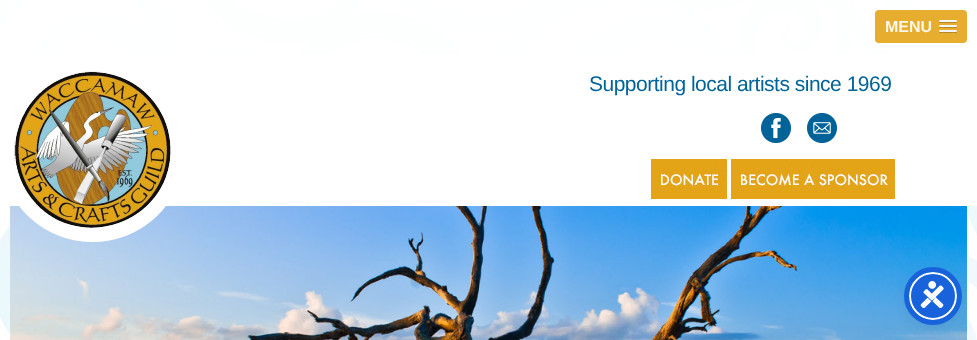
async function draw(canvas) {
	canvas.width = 977;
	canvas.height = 340;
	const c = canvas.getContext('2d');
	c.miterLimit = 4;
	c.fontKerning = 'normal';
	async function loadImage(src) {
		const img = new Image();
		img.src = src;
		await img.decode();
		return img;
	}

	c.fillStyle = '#fff';
	c.fillRect(0, 0, 977, 340);
	c.drawImage(await loadImage('img1.png'), 0, 0, 977, 340);
	c.fillStyle = '#ffffffe6';
	c.fillRect(0, 0, 977, 54);
	c.fillStyle = '#e6ad2e';
	c.beginPath();
	c.roundRect(875, 10, 92, 33, 4);
	c.fill();
	c.font = 'bold 16px Liberation Sans';
	c.fillStyle = '#fdf7ea';
	c.fillText('MENU', 885, 32);
	c.fillStyle = '#b38829';
	c.beginPath();
	c.moveTo(939, 21.5);
	c.bezierCurveTo(938, 23.5, 942.5, 23, 942.5, 23);
	c.lineTo(953.5, 23);
	c.bezierCurveTo(953.5, 23, 958, 23.5, 957, 21.5);
	c.bezierCurveTo(956, 22.5, 949.5, 22, 948, 22);
	c.bezierCurveTo(946.5, 22, 940, 22.5, 939, 21.5);
	c.closePath();
	c.fill();
	c.fillStyle = '#f4f5f6';
	c.beginPath();
	c.roundRect(939, 20, 18, 2, 1);
	c.fill();
	c.fillStyle = '#b38829';
	c.beginPath();
	c.moveTo(939, 26.5);
	c.bezierCurveTo(938, 28.5, 942.5, 28, 942.5, 28);
	c.lineTo(953.5, 28);
	c.bezierCurveTo(953.5, 28, 958, 28.5, 957, 26.5);
	c.bezierCurveTo(956, 27.5, 949.5, 27, 948, 27);
	c.bezierCurveTo(946.5, 27, 940, 27.5, 939, 26.5);
	c.closePath();
	c.fill();
	c.fillStyle = '#f4f5f6';
	c.beginPath();
	c.roundRect(939, 25, 18, 2, 1);
	c.fill();
	c.fillStyle = '#b38829';
	c.beginPath();
	c.moveTo(939, 31.5);
	c.bezierCurveTo(938, 33.5, 942.5, 33, 942.5, 33);
	c.lineTo(953.5, 33);
	c.bezierCurveTo(953.5, 33, 958, 33.5, 957, 31.5);
	c.bezierCurveTo(956, 32.5, 949.5, 32, 948, 32);
	c.bezierCurveTo(946.5, 32, 940, 32.5, 939, 31.5);
	c.closePath();
	c.fill();
	c.fillStyle = '#f4f5f6';
	c.beginPath();
	c.roundRect(939, 30, 18, 2, 1);
	c.fill();
	c.fillStyle = '#fff';
	c.fillRect(0, 54, 977, 152);
	c.drawImage(await loadImage('img7.png'), 10, 206, 957, 134);
	c.drawImage(await loadImage('img2.png'), 14, 71, 157, 171);
	c.letterSpacing = '-0.5px';
	c.font = '21px Liberation Sans';
	c.fillStyle = '#006498';
	c.fillText('Supporting local artists since 1969', 589, 91);
	c.drawImage(await loadImage('img3.png'), 761, 113, 30, 30);
	c.drawImage(await loadImage('img4.png'), 807, 113, 30, 30);
	c.drawImage(await loadImage('img5.png'), 651, 159, 76, 40);
	c.drawImage(await loadImage('img6.png'), 731, 159, 164, 40);
	c.fillStyle = '#5d649433';
	c.filter = 'blur(2px)';
	c.beginPath();
	c.roundRect(909, 274, 48, 48, 24);
	c.fill();
	c.filter = 'none';
	c.fillStyle = '#252c6126';
	c.filter = 'blur(7.5px)';
	c.beginPath();
	c.roundRect(909, 277, 48, 48, 24);
	c.fill();
	c.filter = 'none';
	c.fillStyle = '#1863dc';
	c.beginPath();
	c.arc(933, 296, 23, 0, 2 * Math.PI);
	c.fill();
	c.strokeStyle = '#fff';
	c.lineWidth = 2;
	c.stroke();
	c.beginPath();
	c.arc(933, 296, 26.5, 0, 2 * Math.PI);
	c.strokeStyle = '#1863dc';
	c.lineWidth = 5;
	c.stroke();
	c.drawImage(await loadImage('img8.png'), 920, 281, 24, 27);
}

draw(document.querySelector('canvas'));
